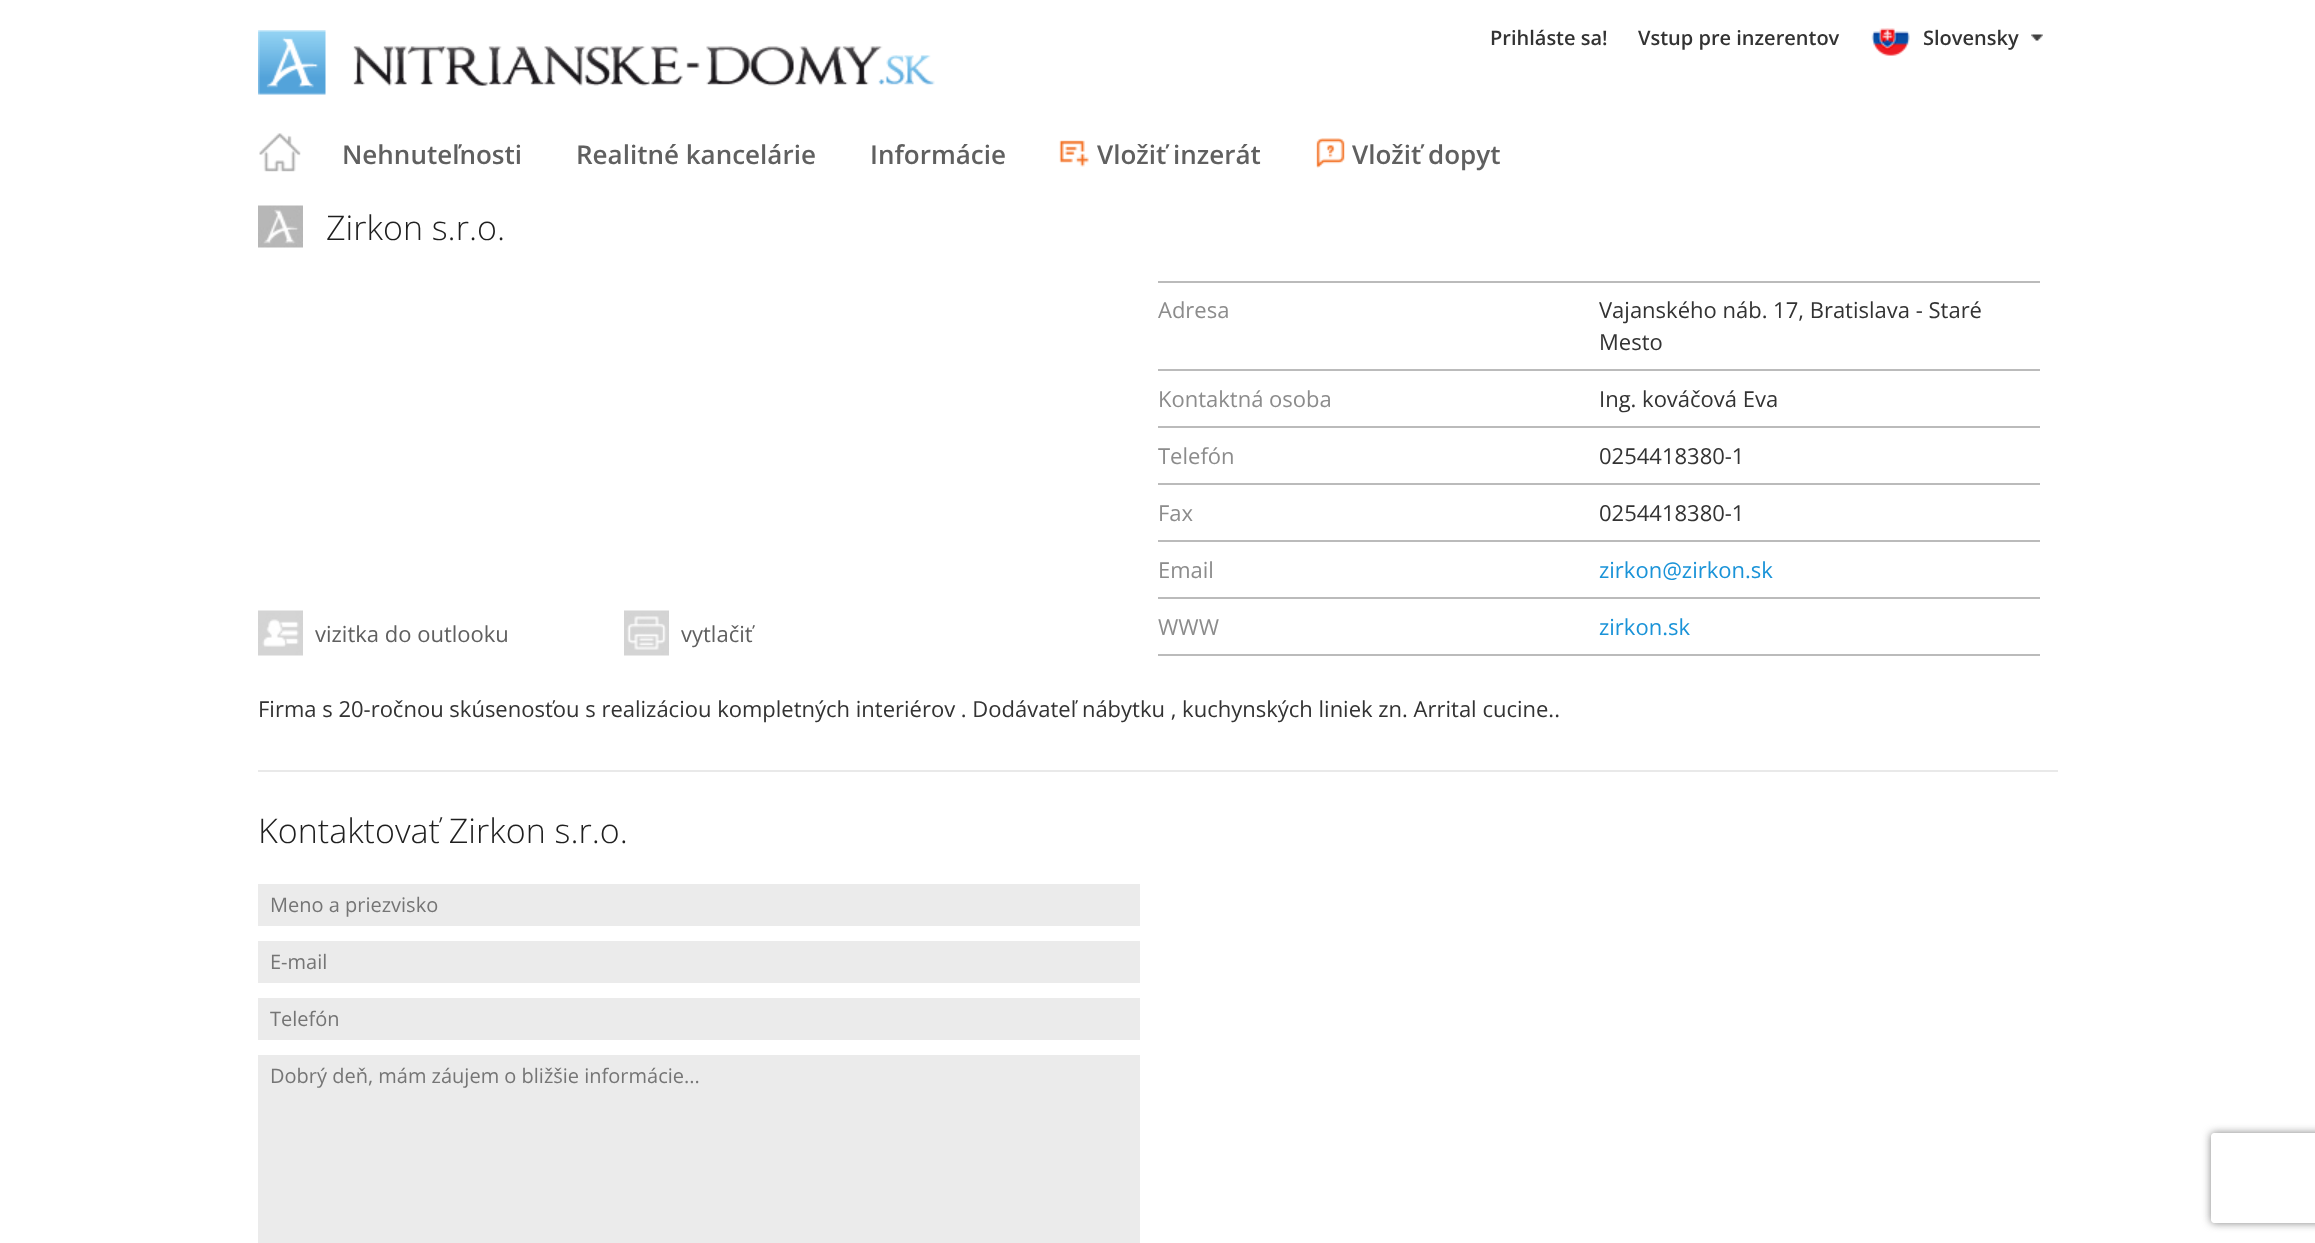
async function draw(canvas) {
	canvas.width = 2315;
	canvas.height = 1243;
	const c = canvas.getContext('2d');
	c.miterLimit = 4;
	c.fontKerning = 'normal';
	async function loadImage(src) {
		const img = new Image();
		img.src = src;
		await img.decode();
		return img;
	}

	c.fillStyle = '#fff';
	c.fillRect(0, 0, 2315, 1243);
	c.font = '600 20px Open Sans';
	c.fillStyle = '#333';
	c.fillText('Prihláste sa!', 1490, 45);
	c.fillText('Vstup pre inzerentov', 1638, 45);
	c.drawImage(await loadImage('img1.png'), 1871, 28, 39, 28);
	c.fillText('Slovensky', 1923, 45);
	c.drawImage(await loadImage('img2.png'), 2031, 34, 12, 7);
	c.drawImage(await loadImage('img3.png'), 259, 133, 42, 39);
	c.font = '600 26px Open Sans';
	c.fillStyle = '#606060';
	for (const [text, x, y] of [
		['Nehnuteľnosti', 342, 164],
		['Realitné kancelárie', 576, 164],
		['Informácie', 870, 164],
	]) {
		c.fillText(text, x, y);
	}
	c.drawImage(await loadImage('img4.png'), 1059, 140, 30, 27);
	c.fillText('Vložiť inzerát', 1097, 164);
	c.drawImage(await loadImage('img5.png'), 1316, 138, 29, 30);
	c.fillText('Vložiť dopyt', 1352, 164);
	c.drawImage(await loadImage('img6.png'), 258, 30, 677, 65);
	c.drawImage(await loadImage('img7.png'), 258, 205, 45, 43);
	c.font = '300 34px Open Sans';
	c.fillStyle = '#1f1f1f';
	c.fillText('Zirkon s.r.o.', 326, 240);
	c.drawImage(await loadImage('img8.png'), 258, 610, 45, 46);
	c.font = '22px Open Sans';
	c.fillStyle = '#606060';
	c.fillText('vizitka do outlooku', 315, 642);
	c.drawImage(await loadImage('img9.png'), 624, 610, 45, 46);
	c.fillText('vytlačiť', 681, 642);
	c.fillStyle = '#bbb';
	c.fillRect(1158, 281, 882, 2);
	c.fillRect(1158, 369, 882, 2);
	c.fillStyle = '#8c8c8c';
	c.fillText('Adresa', 1158, 318);
	c.fillStyle = '#333';
	c.fillText('Vajanského náb. 17, Bratislava - Staré', 1599, 318);
	c.fillText('Mesto', 1599, 350);
	c.fillStyle = '#bbb';
	c.fillRect(1158, 426, 882, 2);
	c.fillStyle = '#8c8c8c';
	c.fillText('Kontaktná osoba', 1158, 407);
	c.fillStyle = '#333';
	c.fillText('Ing. kováčová Eva', 1599, 407);
	c.fillStyle = '#bbb';
	c.fillRect(1158, 483, 882, 2);
	c.fillStyle = '#8c8c8c';
	c.fillText('Telefón', 1158, 464);
	c.fillStyle = '#333';
	c.fillText('0254418380-1', 1599, 464);
	c.fillStyle = '#bbb';
	c.fillRect(1158, 540, 882, 2);
	c.fillStyle = '#8c8c8c';
	c.fillText('Fax', 1158, 521);
	c.fillStyle = '#333';
	c.fillText('0254418380-1', 1599, 521);
	c.fillStyle = '#bbb';
	c.fillRect(1158, 597, 882, 2);
	c.fillStyle = '#8c8c8c';
	c.fillText('Email', 1158, 578);
	c.fillStyle = '#1a93d8';
	c.fillText('zirkon@zirkon.sk', 1599, 578);
	c.fillStyle = '#bbb';
	c.fillRect(1158, 654, 882, 2);
	c.fillStyle = '#8c8c8c';
	c.fillText('WWW', 1158, 635);
	c.fillStyle = '#1a93d8';
	c.fillText('zirkon.sk', 1599, 635);
	c.fillStyle = '#333';
	c.fillText('Firma s 20-ročnou skúsenosťou s realizáciou kompletných interiérov . Dodávateľ nábytku , kuchynských liniek zn. Arrital cucine..', 258, 717);
	c.fillStyle = '#e9e9e9';
	c.fillRect(258, 770, 1800, 2);
	c.font = '300 34px Open Sans';
	c.fillStyle = '#1f1f1f';
	c.fillText('Kontaktovať Zirkon s.r.o.', 258, 843);
	c.fillStyle = '#ebebeb';
	c.fillRect(258, 884, 882, 42);
	c.font = '20px Open Sans';
	c.fillStyle = '#757575';
	c.fillText('Meno a priezvisko', 270, 912);
	c.fillStyle = '#ebebeb';
	c.fillRect(258, 941, 882, 42);
	c.fillStyle = '#757575';
	c.fillText('E-mail', 270, 969);
	c.fillStyle = '#ebebeb';
	c.fillRect(258, 998, 882, 42);
	c.fillStyle = '#757575';
	c.fillText('Telefón', 270, 1026);
	c.fillStyle = '#ebebeb';
	c.fillRect(258, 1055, 882, 188);
	c.fillStyle = '#757575';
	c.fillText('Dobrý deň, mám záujem o bližšie informácie...', 270, 1083);
	c.save();
	c.beginPath();
	c.moveTo(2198, 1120);
	c.lineTo(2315, 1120);
	c.lineTo(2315, 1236);
	c.lineTo(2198, 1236);
	c.closePath();
	c.moveTo(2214, 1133);
	c.lineTo(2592, 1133);
	c.bezierCurveTo(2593.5, 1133, 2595, 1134.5, 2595, 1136);
	c.lineTo(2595, 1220);
	c.bezierCurveTo(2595, 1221.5, 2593.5, 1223, 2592, 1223);
	c.lineTo(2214, 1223);
	c.bezierCurveTo(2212.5, 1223, 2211, 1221.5, 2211, 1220);
	c.lineTo(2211, 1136);
	c.bezierCurveTo(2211, 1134.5, 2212.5, 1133, 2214, 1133);
	c.closePath();
	c.clip('evenodd');
	c.fillStyle = '#808080';
	c.filter = 'blur(4px)';
	c.beginPath();
	c.roundRect(2211, 1133, 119, 90, 3);
	c.fill();
	c.filter = 'none';
	c.restore();
}

draw(document.querySelector('canvas'));
